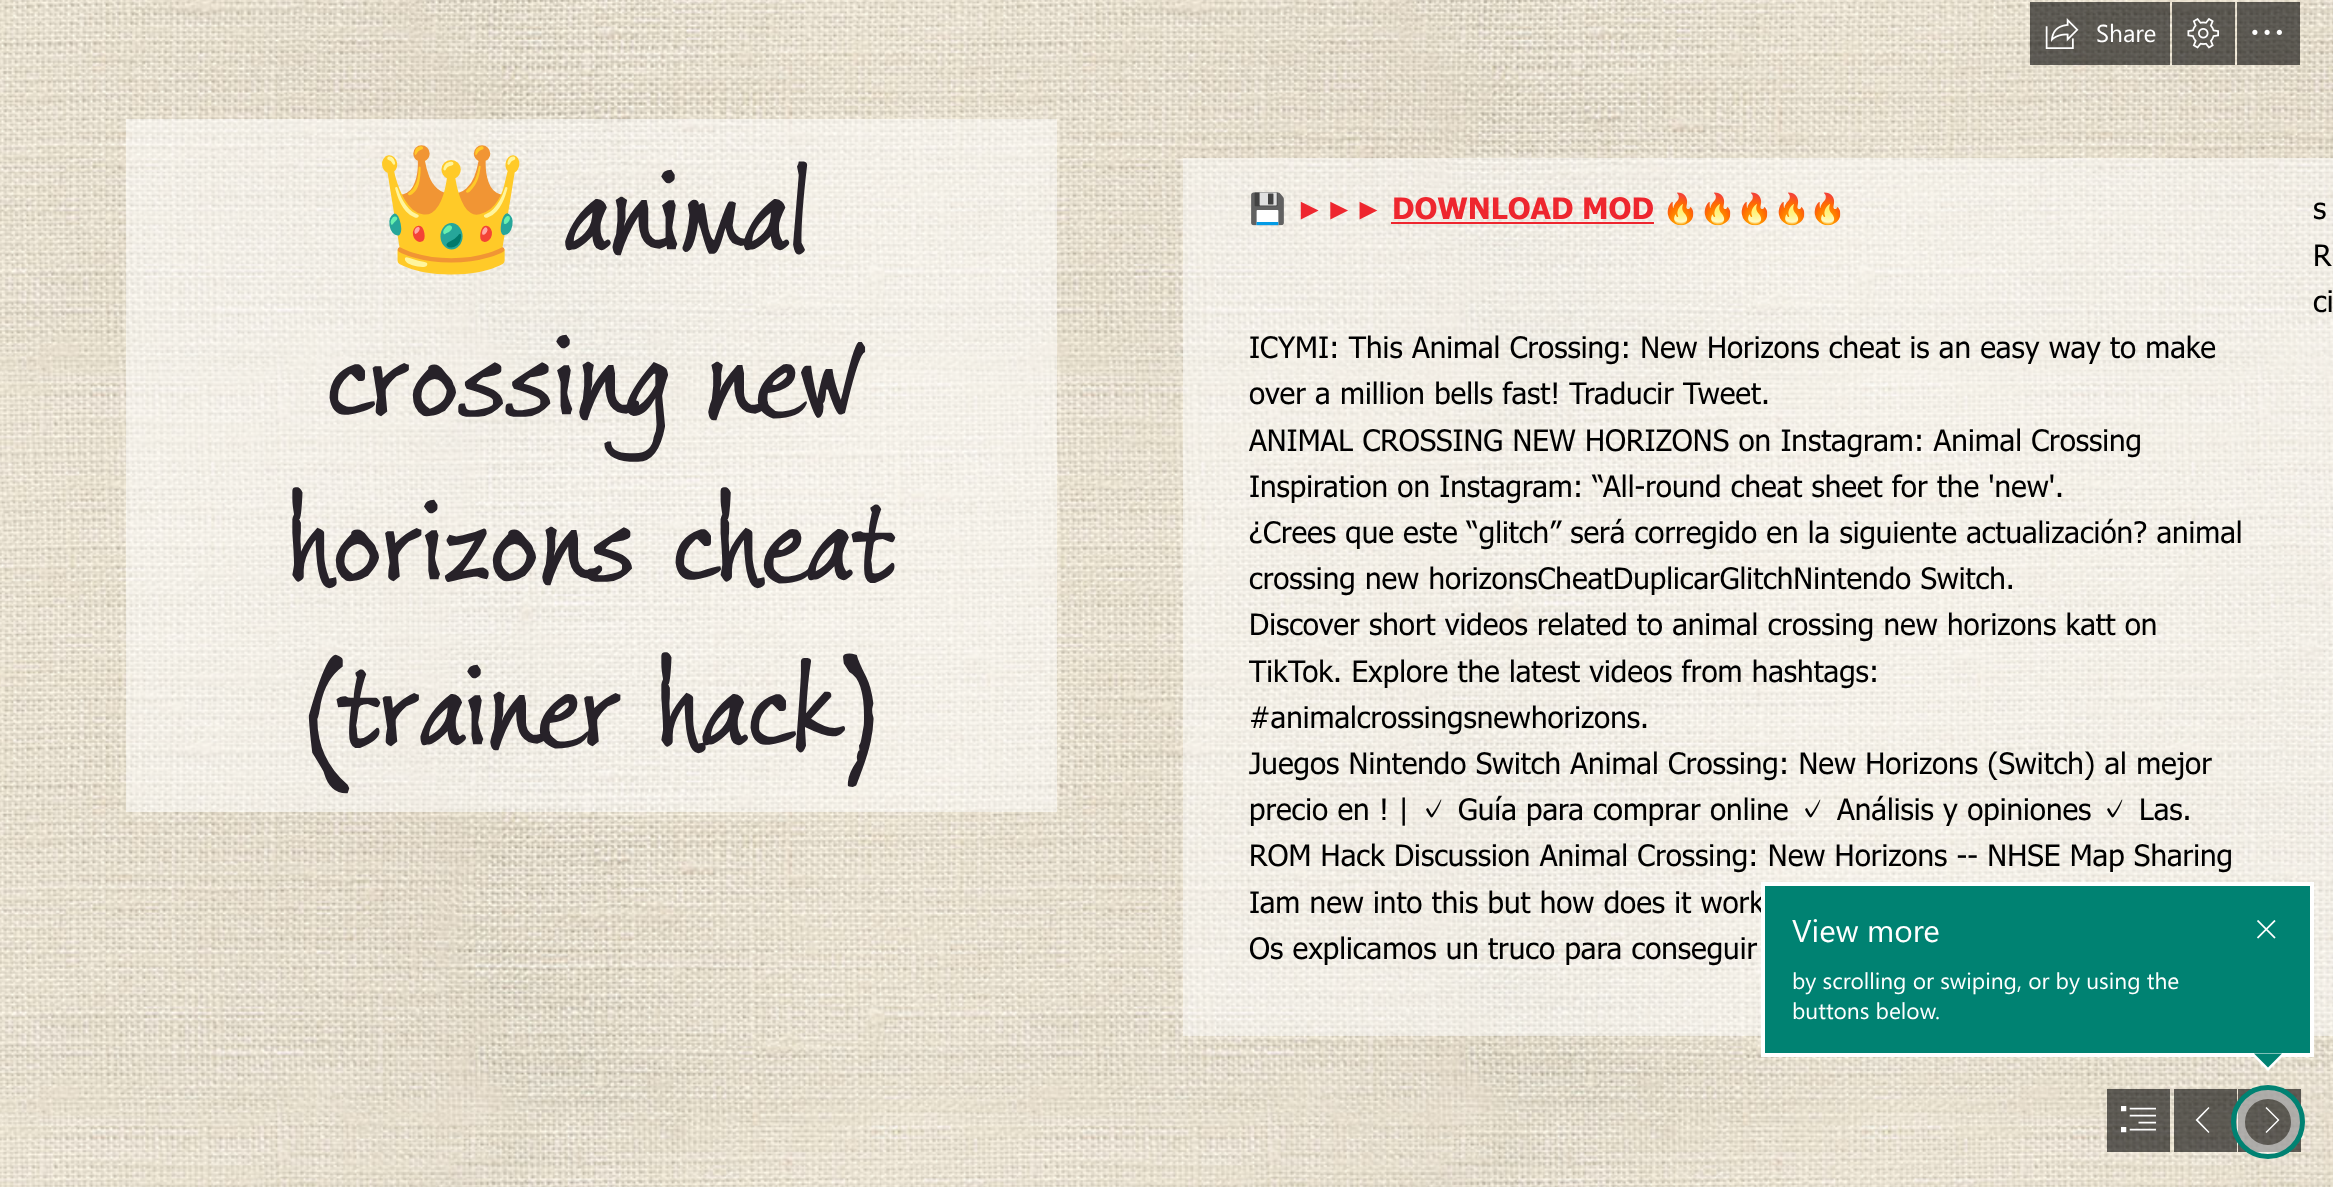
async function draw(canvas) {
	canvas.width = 2333;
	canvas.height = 1187;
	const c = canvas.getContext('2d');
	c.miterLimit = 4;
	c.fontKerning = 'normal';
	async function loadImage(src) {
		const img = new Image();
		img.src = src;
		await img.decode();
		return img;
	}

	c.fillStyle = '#fff';
	c.fillRect(0, 0, 2333, 1187);
	c.drawImage(await loadImage('img4.png'), 0, 0, 2333, 1187);
	c.fillStyle = '#00000099';
	c.fillRect(2030, 2, 140, 63);
	c.drawImage(await loadImage('img1.png'), 2045, 18, 34, 31);
	c.font = '24.5px Segoe UI';
	c.fillStyle = '#fff';
	c.fillText('Share', 2096, 42);
	c.fillStyle = '#00000099';
	c.fillRect(2172, 2, 63, 63);
	c.drawImage(await loadImage('img2.png'), 2187, 18, 32, 31);
	c.fillRect(2237, 2, 63, 63);
	c.drawImage(await loadImage('img3.png'), 2252, 29, 30, 6);
	c.fillStyle = '#ffffff80';
	c.fillRect(126, 119, 931, 693);
	c.font = '123.75px Noto Color Emoji';
	c.fillStyle = '#272229';
	c.fillText('👑', 374, 251);
	c.font = '123.75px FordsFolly';
	for (const [text, x, y] of [
		['animal', 564, 251],
		['crossing new', 326, 416],
		['horizons cheat', 288, 581],
		['(trainer hack)', 300, 746],
	]) {
		c.fillText(text, x, y);
	}
	c.fillStyle = '#ffffff80';
	c.fillRect(1183, 158, 1150, 878);
	c.font = 'bold 29.7px Noto Color Emoji';
	c.fillStyle = '#ee262e';
	c.fillText('💾', 1249, 219);
	c.font = 'bold 29.7px Liberation Sans';
	c.fillText('►►►', 1295, 219);
	c.font = 'bold 29.7px Tahoma';
	c.fillText('DOWNLOAD MOD', 1392, 219);
	c.fillRect(1391, 222, 263, 2);
	c.font = 'bold 29.7px Noto Color Emoji';
	c.fillText('🔥🔥🔥🔥🔥', 1662, 219);
	c.font = '29.7px Tahoma';
	c.fillStyle = '#000';
	for (const [text, x, y] of [
		['ICYMI: This Animal Crossing: New Horizons cheat is an easy way to make', 1249, 358],
		['over a million bells fast! Traducir Tweet.', 1249, 404],
		['ANIMAL CROSSING NEW HORIZONS on Instagram: Animal Crossing', 1249, 451],
		['Inspiration on Instagram: “All-round cheat sheet for the \'new\'.', 1249, 497],
		['¿Crees que este “glitch” será corregido en la siguiente actualización? animal', 1249, 543],
		['crossing new horizonsCheatDuplicarGlitchNintendo Switch.', 1249, 589],
		['Discover short videos related to animal crossing new horizons katt on', 1249, 635],
		['TikTok. Explore the latest videos from hashtags:', 1249, 682],
		['#animalcrossingsnewhorizons.', 1249, 728],
		['Juegos Nintendo Switch Animal Crossing: New Horizons (Switch) al mejor', 1249, 774],
		['precio en ! |', 1249, 820],
	]) {
		c.fillText(text, x, y);
	}
	c.font = '29.7px "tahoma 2"';
	c.fillText('✓', 1419, 820);
	c.font = '29.7px Tahoma';
	c.fillText('Guía para comprar online', 1458, 820);
	c.font = '29.7px "tahoma 2"';
	c.fillText('✓', 1798, 820);
	c.font = '29.7px Tahoma';
	c.fillText('Análisis y opiniones', 1837, 820);
	c.font = '29.7px "tahoma 2"';
	c.fillText('✓', 2100, 820);
	c.font = '29.7px Tahoma';
	for (const [text, x, y] of [
		['Las.', 2139, 820],
		['ROM Hack Discussion Animal Crossing: New Horizons -- NHSE Map Sharing', 1249, 866],
		['Iam new into this but how does it work', 1249, 913],
		['Os explicamos un truco para conseguir', 1249, 959],
		['s', 2313, 219],
		['R', 2313, 266],
		['ci', 2313, 312],
	]) {
		c.fillText(text, x, y);
	}
	c.fillStyle = '#008272';
	c.beginPath();
	c.rect(1763, 884, 549, 171);
	c.fill();
	c.strokeStyle = '#fff';
	c.lineWidth = 4;
	c.stroke();
	c.font = '31.5px Segoe UI';
	c.fillStyle = '#fff';
	c.fillText('View more', 1792, 942);
	c.font = '22.75px Segoe UI';
	c.fillText('by scrolling or swiping, or by using the', 1792, 989);
	c.fillText('buttons below.', 1792, 1019);
	c.drawImage(await loadImage('img5.png'), 2257, 920, 19, 19);
	c.beginPath();
	c.moveTo(2250.5, 1053.5);
	c.lineTo(2285.5, 1053.5);
	c.lineTo(2268, 1071);
	c.closePath();
	c.fill();
	c.fillStyle = '#008272';
	c.beginPath();
	c.moveTo(2254, 1053.5);
	c.lineTo(2282, 1053.5);
	c.lineTo(2268, 1067.5);
	c.closePath();
	c.fill();
	c.fillStyle = '#00000099';
	c.fillRect(2174, 1089, 63, 63);
	c.fillRect(2238, 1089, 63, 63);
	c.fillStyle = '#fff';
	c.beginPath();
	c.moveTo(2266.5, 1133);
	c.lineTo(2265.5, 1132);
	c.lineTo(2277.5, 1120);
	c.lineTo(2265.5, 1108);
	c.lineTo(2266.5, 1107);
	c.lineTo(2279.5, 1120);
	c.closePath();
	c.fill();
	c.beginPath();
	c.arc(2268, 1122, 29, 0, 2 * Math.PI);
	c.strokeStyle = '#ffffff80';
	c.lineWidth = 12;
	c.stroke();
	c.beginPath();
	c.arc(2268, 1122, 34.5, 0, 2 * Math.PI);
	c.strokeStyle = '#008272';
	c.lineWidth = 5;
	c.stroke();
	c.fillStyle = '#00000099';
	c.fillRect(2107, 1089, 63, 63);
	c.drawImage(await loadImage('img6.png'), 2121, 1106, 35, 27);
	c.fillStyle = '#fff';
	c.beginPath();
	c.moveTo(2195.5, 1120);
	c.lineTo(2208.5, 1107);
	c.lineTo(2209.5, 1108);
	c.lineTo(2198, 1120);
	c.lineTo(2209.5, 1132);
	c.lineTo(2208.5, 1133);
	c.closePath();
	c.fill();
}

draw(document.querySelector('canvas'));
